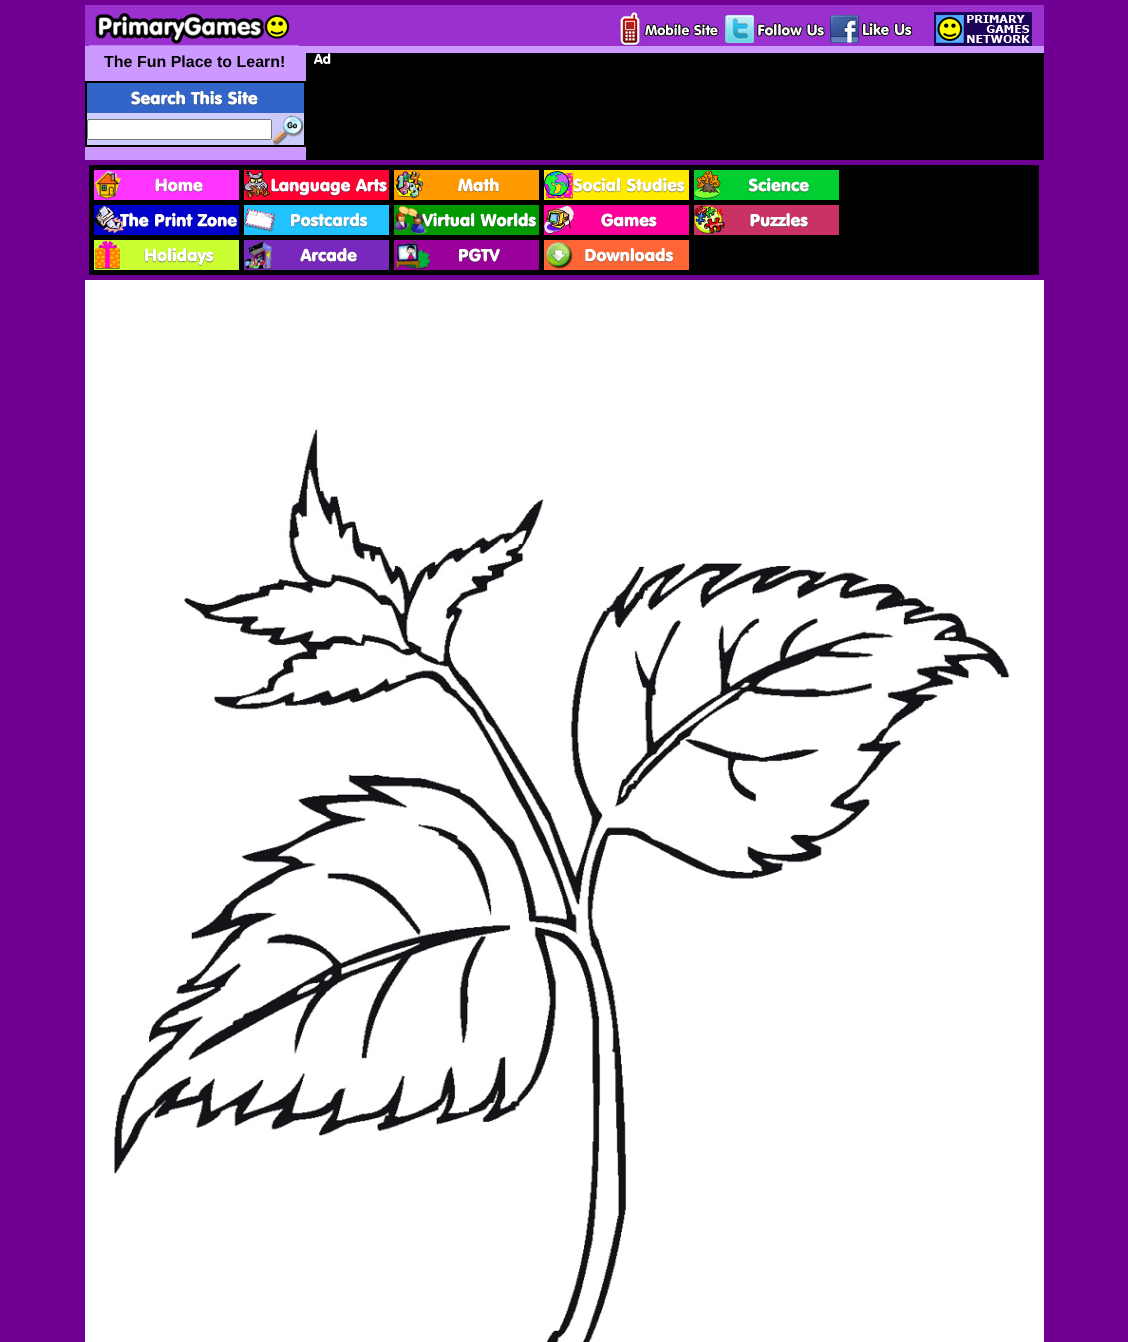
async function draw(canvas) {
	canvas.width = 1128;
	canvas.height = 1342;
	const c = canvas.getContext('2d');
	c.miterLimit = 4;
	c.fontKerning = 'normal';
	async function loadImage(src) {
		const img = new Image();
		img.src = src;
		await img.decode();
		return img;
	}

	c.fillStyle = '#6f0093';
	c.fillRect(0, 0, 1128, 1342);
	c.fillStyle = '#c9f';
	c.fillRect(85, 46, 959, 114);
	c.fillStyle = '#9a31ce';
	c.fillRect(85, 5, 959, 41);
	c.drawImage(await loadImage('img1.png'), 89, 12, 210, 34);
	c.drawImage(await loadImage('img2.png'), 619, 12, 100, 34);
	c.drawImage(await loadImage('img3.png'), 725, 15, 100, 28);
	c.drawImage(await loadImage('img4.png'), 830, 15, 83, 28);
	c.drawImage(await loadImage('img5.png'), 934, 12, 98, 34);
	c.font = 'bold 16px Liberation Sans';
	c.fillStyle = '#000';
	c.fillText('The Fun Place to Learn!', 104, 67);
	c.strokeStyle = '#000';
	c.strokeRect(85.5, 81.5, 220, 65);
	c.strokeRect(86.5, 82.5, 218, 63);
	c.fillStyle = '#3165ca';
	c.fillRect(87, 83, 217, 30);
	c.drawImage(await loadImage('img6.png'), 131, 91, 127, 15);
	c.fillStyle = '#ccf';
	c.fillRect(87, 113, 217, 32);
	c.fillStyle = '#fff';
	c.beginPath();
	c.roundRect(87.5, 119.5, 184, 20, 1.5);
	c.fill();
	c.strokeStyle = '#767676';
	c.stroke();
	c.drawImage(await loadImage('img7.png'), 273, 114, 31, 31);
	c.fillStyle = '#000';
	c.fillRect(306, 53, 738, 107);
	c.drawImage(await loadImage('img8.png'), 314, 53, 17, 11);
	c.fillRect(89, 165, 950, 110);
	c.drawImage(await loadImage('img9.png'), 94, 170, 145, 30);
	c.drawImage(await loadImage('img10.png'), 244, 170, 145, 30);
	c.drawImage(await loadImage('img11.png'), 394, 170, 145, 30);
	c.drawImage(await loadImage('img12.png'), 544, 170, 145, 30);
	c.drawImage(await loadImage('img13.png'), 694, 170, 145, 30);
	c.drawImage(await loadImage('img14.png'), 94, 205, 145, 30);
	c.drawImage(await loadImage('img15.png'), 244, 205, 145, 30);
	c.drawImage(await loadImage('img16.png'), 394, 205, 145, 30);
	c.drawImage(await loadImage('img17.png'), 544, 205, 145, 30);
	c.drawImage(await loadImage('img18.png'), 694, 205, 145, 30);
	c.drawImage(await loadImage('img19.png'), 94, 240, 145, 30);
	c.drawImage(await loadImage('img20.png'), 244, 240, 145, 30);
	c.drawImage(await loadImage('img21.png'), 394, 240, 145, 30);
	c.drawImage(await loadImage('img22.png'), 544, 240, 145, 30);
	c.fillStyle = '#fff';
	c.fillRect(85, 280, 959, 1062);
	c.drawImage(await loadImage('img23.png'), 114, 429, 896, 913);
}

draw(document.querySelector('canvas'));
